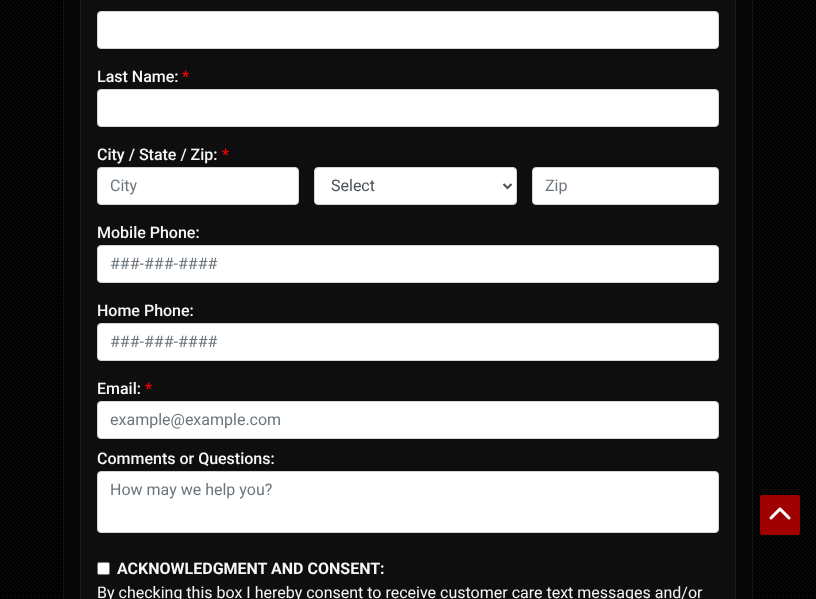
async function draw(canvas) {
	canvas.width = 816;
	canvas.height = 599;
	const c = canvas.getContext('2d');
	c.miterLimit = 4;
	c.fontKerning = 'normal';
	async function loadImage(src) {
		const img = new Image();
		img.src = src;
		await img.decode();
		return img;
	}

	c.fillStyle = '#000';
	c.fillRect(0, 0, 816, 599);
	c.drawImage(await loadImage('img1.png'), 1, 1, 815, 597);
	c.fillStyle = '#080808cc';
	c.beginPath();
	c.rect(63.5, -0.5, 689, 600);
	c.fill();
	c.strokeStyle = '#141414';
	c.stroke();
	c.fillStyle = '#14141499';
	c.beginPath();
	c.rect(80.5, -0.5, 655, 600);
	c.fill();
	c.strokeStyle = '#1b1b1b';
	c.stroke();
	c.fillStyle = '#fff';
	c.beginPath();
	c.roundRect(97.5, 11.5, 621, 37, 3.5);
	c.fill();
	c.strokeStyle = '#ced4da';
	c.stroke();
	c.font = '500 16px Roboto';
	c.fillStyle = '#f7f7f7';
	c.fillText('Last Name:', 97, 82);
	c.fillStyle = '#f00';
	c.fillText('*', 182, 82);
	c.fillStyle = '#fff';
	c.beginPath();
	c.roundRect(97.5, 89.5, 621, 37, 3.5);
	c.fill();
	c.stroke();
	c.fillStyle = '#f7f7f7';
	c.fillText('City / State / Zip:', 97, 160);
	c.fillStyle = '#f00';
	c.fillText('*', 222, 160);
	c.fillStyle = '#fff';
	c.beginPath();
	c.roundRect(97.5, 167.5, 201, 37, 3.5);
	c.fill();
	c.stroke();
	c.font = '16px Roboto';
	c.fillStyle = '#6c757d';
	c.fillText('City', 110, 191);
	c.fillStyle = '#fff';
	c.beginPath();
	c.roundRect(314.5, 167.5, 202, 37, 3.5);
	c.fill();
	c.stroke();
	c.beginPath();
	c.moveTo(503.5, 184);
	c.lineTo(507.5, 188);
	c.lineTo(511.5, 184);
	c.strokeStyle = '#495057';
	c.lineWidth = 2;
	c.stroke();
	c.fillStyle = '#495057';
	c.fillText('Select', 331, 191);
	c.fillStyle = '#fff';
	c.beginPath();
	c.roundRect(532.5, 167.5, 186, 37, 3.5);
	c.fill();
	c.strokeStyle = '#ced4da';
	c.lineWidth = 1;
	c.stroke();
	c.fillStyle = '#6c757d';
	c.fillText('Zip', 545, 191);
	c.font = '500 16px Roboto';
	c.fillStyle = '#f7f7f7';
	c.fillText('Mobile Phone:', 97, 238);
	c.fillStyle = '#fff';
	c.beginPath();
	c.roundRect(97.5, 245.5, 621, 37, 3.5);
	c.fill();
	c.stroke();
	c.font = '16px Roboto';
	c.fillStyle = '#6c757d';
	c.fillText('###-###-####', 110, 269);
	c.font = '500 16px Roboto';
	c.fillStyle = '#f7f7f7';
	c.fillText('Home Phone:', 97, 316);
	c.fillStyle = '#fff';
	c.beginPath();
	c.roundRect(97.5, 323.5, 621, 37, 3.5);
	c.fill();
	c.stroke();
	c.font = '16px Roboto';
	c.fillStyle = '#6c757d';
	c.fillText('###-###-####', 110, 347);
	c.font = '500 16px Roboto';
	c.fillStyle = '#f7f7f7';
	c.fillText('Email:', 97, 394);
	c.fillStyle = '#f00';
	c.fillText('*', 145, 394);
	c.fillStyle = '#fff';
	c.beginPath();
	c.roundRect(97.5, 401.5, 621, 37, 3.5);
	c.fill();
	c.stroke();
	c.font = '16px Roboto';
	c.fillStyle = '#6c757d';
	c.fillText('example@example.com', 110, 425);
	c.font = '500 16px Roboto';
	c.fillStyle = '#f7f7f7';
	c.fillText('Comments or Questions:', 97, 464);
	c.fillStyle = '#fff';
	c.beginPath();
	c.roundRect(97.5, 471.5, 621, 61, 3.5);
	c.fill();
	c.stroke();
	c.font = '16px Roboto';
	c.fillStyle = '#6c757d';
	c.fillText('How may we help you?', 110, 495);
	c.fillStyle = '#fff';
	c.beginPath();
	c.roundRect(97.5, 562.5, 12, 12, 1.5);
	c.fill();
	c.strokeStyle = '#767676';
	c.stroke();
	c.font = 'bold 16px Roboto';
	c.fillStyle = '#f7f7f7';
	c.fillText('ACKNOWLEDGMENT AND CONSENT:', 117, 574);
	c.font = '16px Roboto';
	c.fillText('By checking this box I hereby consent to receive customer care text messages and/or', 97, 598);
	c.fillStyle = '#b20000e6';
	c.beginPath();
	c.roundRect(760, 495, 40, 40, 2);
	c.fill();
	c.drawImage(await loadImage('img2.png'), 769, 507, 22, 13);
}

draw(document.querySelector('canvas'));
